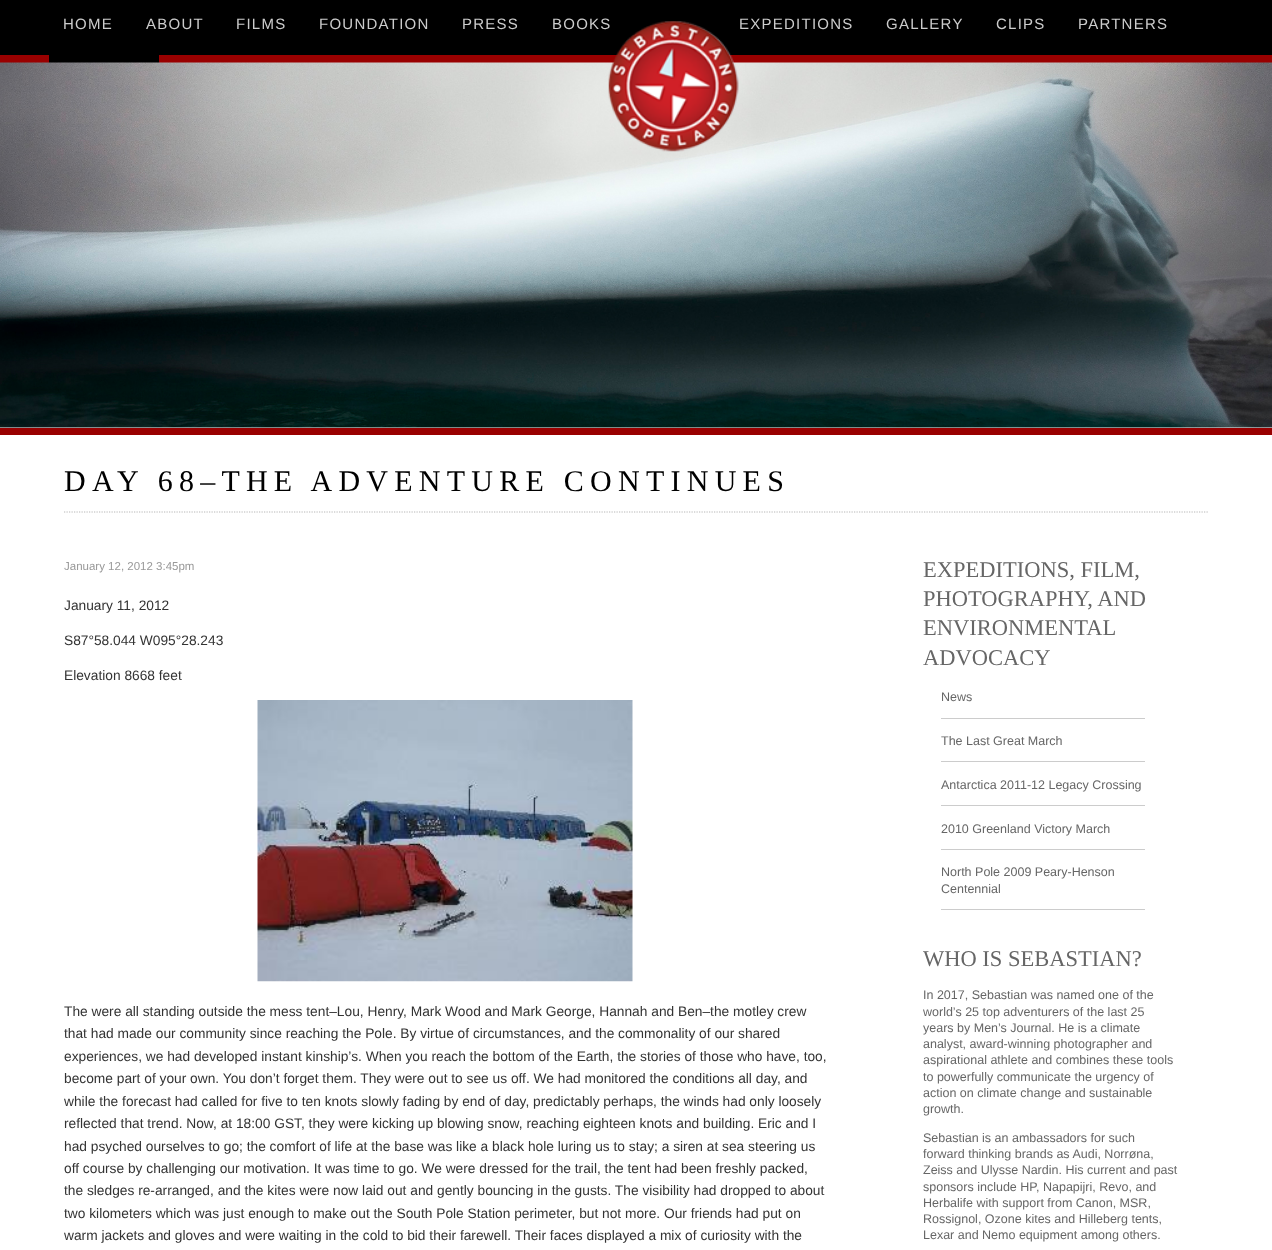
async function draw(canvas) {
	canvas.width = 1272;
	canvas.height = 1250;
	const c = canvas.getContext('2d');
	c.miterLimit = 4;
	c.fontKerning = 'normal';
	async function loadImage(src) {
		const img = new Image();
		img.src = src;
		await img.decode();
		return img;
	}

	c.fillStyle = '#fff';
	c.fillRect(0, 0, 1272, 1250);
	c.fillStyle = '#000';
	c.fillRect(0, 0, 1272, 55);
	c.fillStyle = '#900';
	c.fillRect(0, 55, 1272, 8);
	c.letterSpacing = '1.25px';
	c.font = '15px Liberation Sans';
	c.fillStyle = '#ccc';
	for (const [text, x, y] of [
		['HOME', 63, 29],
		['ABOUT', 146, 29],
		['FILMS', 236, 29],
		['FOUNDATION', 319, 29],
		['PRESS', 462, 29],
		['BOOKS', 552, 29],
	]) {
		c.fillText(text, x, y);
	}
	c.fillStyle = '#000';
	c.fillRect(49, 55, 110, 8);
	c.drawImage(await loadImage('img2.png'), 0, 62, 1272, 366);
	c.drawImage(await loadImage('img1.png'), 608, 21, 131, 131);
	c.fillStyle = '#ccc';
	for (const [text, x, y] of [
		['EXPEDITIONS', 739, 29],
		['GALLERY', 886, 29],
		['CLIPS', 996, 29],
		['PARTNERS', 1078, 29],
	]) {
		c.fillText(text, x, y);
	}
	c.fillStyle = '#900';
	c.fillRect(0, 428, 1272, 7);
	c.beginPath();
	c.moveTo(64, 512);
	c.lineTo(1209, 512);
	c.strokeStyle = '#b8b8b8';
	c.lineWidth = 1.2;
	c.setLineDash([1.25, 1.25]);
	c.stroke();
	c.letterSpacing = '6.25px';
	c.font = '30px Liberation Serif';
	c.fillStyle = '#000';
	c.fillText('DAY 68–THE ADVENTURE CONTINUES', 64, 491);
	c.letterSpacing = '0px';
	c.font = '11.5px Liberation Sans';
	c.fillStyle = '#999';
	c.fillText('January 12, 2012 3:45pm', 64, 570);
	c.font = '13.75px Liberation Sans';
	c.fillStyle = '#333';
	for (const [text, x, y] of [
		['January 11, 2012', 64, 610],
		['S87°58.044 W095°28.243', 64, 645],
		['Elevation 8668 feet', 64, 680],
	]) {
		c.fillText(text, x, y);
	}
	c.drawImage(await loadImage('img3.png'), 257, 700, 376, 282);
	for (const [text, x, y] of [
		['The were all standing outside the mess tent–Lou, Henry, Mark Wood and Mark George, Hannah and Ben–the motley crew', 64, 1016],
		['that had made our community since reaching the Pole. By virtue of circumstances, and the commonality of our shared', 64, 1038],
		['experiences, we had developed instant kinship’s. When you reach the bottom of the Earth, the stories of those who have, too,', 64, 1061],
		['become part of your own. You don’t forget them. They were out to see us off. We had monitored the conditions all day, and', 64, 1083],
		['while the forecast had called for five to ten knots slowly fading by end of day, predictably perhaps, the winds had only loosely', 64, 1106],
		['reflected that trend. Now, at 18:00 GST, they were kicking up blowing snow, reaching eighteen knots and building. Eric and I', 64, 1128],
		['had psyched ourselves to go; the comfort of life at the base was like a black hole luring us to stay; a siren at sea steering us', 64, 1151],
		['off course by challenging our motivation. It was time to go. We were dressed for the trail, the tent had been freshly packed,', 64, 1173],
		['the sledges re-arranged, and the kites were now laid out and gently bouncing in the gusts. The visibility had dropped to about', 64, 1195],
		['two kilometers which was just enough to make out the South Pole Station perimeter, but not more. Our friends had put on', 64, 1218],
		['warm jackets and gloves and were waiting in the cold to bid their farewell. Their faces displayed a mix of curiosity with the', 64, 1240],
	]) {
		c.fillText(text, x, y);
	}
	c.font = '22.5px Liberation Serif';
	c.fillStyle = '#666';
	for (const [text, x, y] of [
		['EXPEDITIONS, FILM,', 923, 577],
		['PHOTOGRAPHY, AND', 923, 606],
		['ENVIRONMENTAL', 923, 635],
		['ADVOCACY', 923, 665],
	]) {
		c.fillText(text, x, y);
	}
	c.fillStyle = '#ccc';
	c.fillRect(941, 718, 204, 1);
	c.font = '12.5px Liberation Sans';
	c.fillStyle = '#666';
	c.fillText('News', 941, 701);
	c.fillStyle = '#ccc';
	c.fillRect(941, 761, 204, 1);
	c.fillStyle = '#666';
	c.fillText('The Last Great March', 941, 745);
	c.fillStyle = '#ccc';
	c.fillRect(941, 805, 204, 1);
	c.fillStyle = '#666';
	c.fillText('Antarctica 2011-12 Legacy Crossing', 941, 789);
	c.fillStyle = '#ccc';
	c.fillRect(941, 849, 204, 1);
	c.fillStyle = '#666';
	c.fillText('2010 Greenland Victory March', 941, 833);
	c.fillStyle = '#ccc';
	c.fillRect(941, 909, 204, 1);
	c.fillStyle = '#666';
	c.fillText('North Pole 2009 Peary-Henson', 941, 876);
	c.fillText('Centennial', 941, 893);
	c.font = '22.5px Liberation Serif';
	c.fillText('WHO IS SEBASTIAN?', 923, 966);
	c.font = '12.5px Liberation Sans';
	for (const [text, x, y] of [
		['In 2017, Sebastian was named one of the', 923, 999],
		['world’s 25 top adventurers of the last 25', 923, 1016],
		['years by Men’s Journal. He is a climate', 923, 1032],
		['analyst, award-winning photographer and', 923, 1048],
		['aspirational athlete and combines these tools', 923, 1064],
		['to powerfully communicate the urgency of', 923, 1081],
		['action on climate change and sustainable', 923, 1097],
		['growth.', 923, 1113],
		['Sebastian is an ambassadors for such', 923, 1142],
		['forward thinking brands as Audi, Norrøna,', 923, 1158],
		['Zeiss and Ulysse Nardin. His current and past', 923, 1174],
		['sponsors include HP, Napapijri, Revo, and', 923, 1191],
		['Herbalife with support from Canon, MSR,', 923, 1207],
		['Rossignol, Ozone kites and Hilleberg tents,', 923, 1223],
		['Lexar and Nemo equipment among others.', 923, 1239],
	]) {
		c.fillText(text, x, y);
	}
}

draw(document.querySelector('canvas'));
